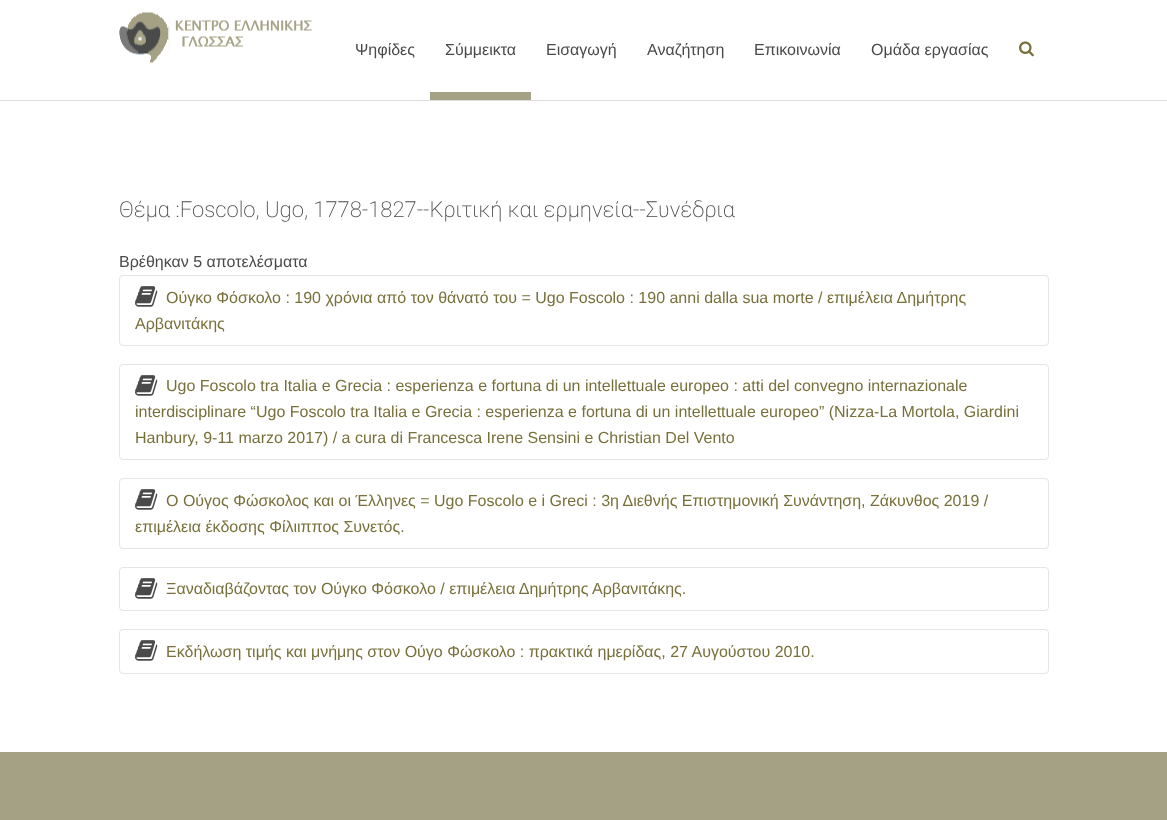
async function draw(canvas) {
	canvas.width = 1167;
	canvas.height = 820;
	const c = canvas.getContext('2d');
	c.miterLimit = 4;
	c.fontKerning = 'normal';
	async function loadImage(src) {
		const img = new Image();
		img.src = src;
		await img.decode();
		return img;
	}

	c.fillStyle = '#fff';
	c.fillRect(0, 0, 1167, 820);
	c.drawImage(await loadImage('img1.png'), 119, 12, 193, 51);
	c.font = '16px Liberation Sans';
	c.fillStyle = '#4a4a4a';
	c.fillText('Ψηφίδες', 355, 55);
	c.fillText('Σύμμεικτα', 445, 55);
	c.fillStyle = '#a5a184';
	c.fillRect(430, 92, 101, 8);
	c.fillStyle = '#4a4a4a';
	for (const [text, x, y] of [
		['Εισαγωγή', 546, 55],
		['Αναζήτηση', 647, 55],
		['Επικοινωνία', 754, 55],
		['Ομάδα εργασίας', 871, 55],
	]) {
		c.fillText(text, x, y);
	}
	c.drawImage(await loadImage('img2.png'), 1019, 41, 15, 16);
	c.fillStyle = '#ddd';
	c.fillRect(0, 100, 1167, 1);
	c.font = '200 22px Roboto';
	c.fillStyle = '#4a4a4a';
	c.fillText('Θέμα :Foscolo, Ugo, 1778-1827--Κριτική και ερμηνεία--Συνέδρια', 119, 217);
	c.font = '16px Liberation Sans';
	c.fillText('Βρέθηκαν 5 αποτελέσματα', 119, 267);
	c.beginPath();
	c.roundRect(119.5, 275.5, 929, 70, 3.5);
	c.strokeStyle = '#e5e5e5';
	c.stroke();
	c.drawImage(await loadImage('img3.png'), 135, 286, 23, 21);
	c.fillStyle = '#78703a';
	c.fillText('Ούγκο Φόσκολο : 190 χρόνια από τον θάνατό του = Ugo Foscolo : 190 anni dalla sua morte / επιμέλεια Δημήτρης', 166, 303);
	c.fillText('Αρβανιτάκης', 135, 329);
	c.beginPath();
	c.roundRect(119.5, 364.5, 929, 95, 3.5);
	c.stroke();
	c.drawImage(await loadImage('img3.png'), 135, 375, 23, 21);
	for (const [text, x, y] of [
		['Ugo Foscolo tra Italia e Grecia : esperienza e fortuna di un intellettuale europeo : atti del convegno internazionale', 166, 391],
		['interdisciplinare “Ugo Foscolo tra Italia e Grecia : esperienza e fortuna di un intellettuale europeo” (Nizza-La Mortola, Giardini', 135, 417],
		['Hanbury, 9-11 marzo 2017) / a cura di Francesca Irene Sensini e Christian Del Vento', 135, 443],
	]) {
		c.fillText(text, x, y);
	}
	c.beginPath();
	c.roundRect(119.5, 478.5, 929, 70, 3.5);
	c.stroke();
	c.drawImage(await loadImage('img3.png'), 135, 489, 23, 21);
	c.fillText('Ο Ούγος Φώσκολος και οι Έλληνες = Ugo Foscolo e i Greci : 3η Διεθνής Επιστημονική Συνάντηση, Ζάκυνθος 2019 /', 166, 506);
	c.fillText('επιμέλεια έκδοσης Φίλιιππος Συνετός.', 135, 532);
	c.beginPath();
	c.roundRect(119.5, 567.5, 929, 43, 3.5);
	c.stroke();
	c.drawImage(await loadImage('img3.png'), 135, 578, 23, 21);
	c.fillText('Ξαναδιαβάζοντας τον Ούγκο Φόσκολο / επιμέλεια Δημήτρης Αρβανιτάκης.', 166, 594);
	c.beginPath();
	c.roundRect(119.5, 629.5, 929, 44, 3.5);
	c.stroke();
	c.drawImage(await loadImage('img3.png'), 135, 640, 23, 21);
	c.fillText('Εκδήλωση τιμής και μνήμης στον Ούγο Φώσκολο : πρακτικά ημερίδας, 27 Αυγούστου 2010.', 166, 657);
	c.fillStyle = '#a5a184';
	c.fillRect(0, 752, 1167, 68);
}

draw(document.querySelector('canvas'));
